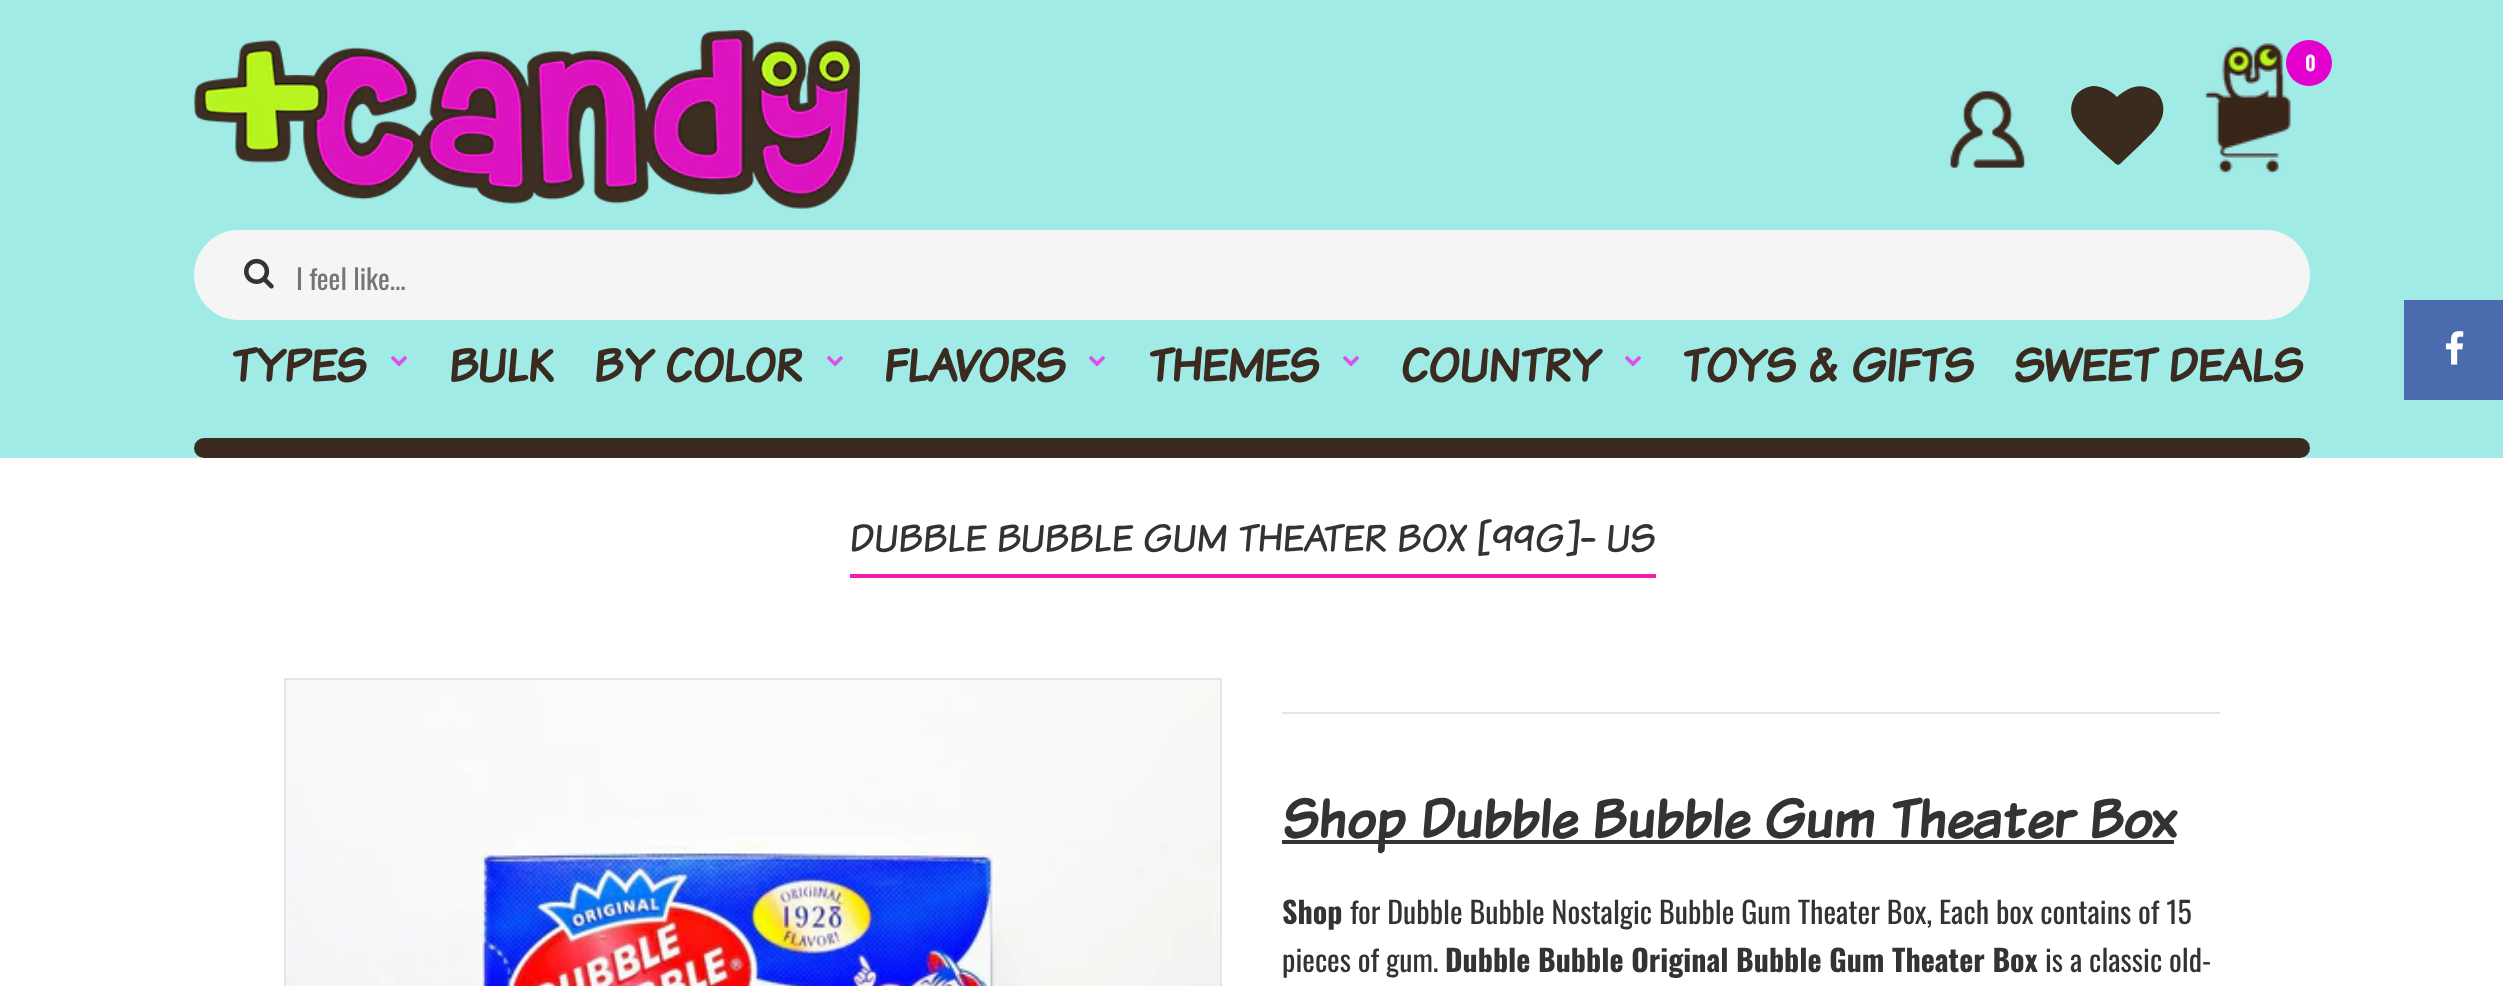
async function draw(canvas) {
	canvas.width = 2503;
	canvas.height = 986;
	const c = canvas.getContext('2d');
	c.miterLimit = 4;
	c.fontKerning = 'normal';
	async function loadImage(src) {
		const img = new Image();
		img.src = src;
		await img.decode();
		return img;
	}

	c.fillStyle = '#fff';
	c.fillRect(0, 0, 2503, 986);
	c.fillStyle = '#a1ebe6';
	c.fillRect(0, 0, 2503, 458);
	c.drawImage(await loadImage('img1.png'), 194, 30, 666, 179);
	c.drawImage(await loadImage('img2.png'), 2204, 43, 87, 131);
	c.fillStyle = '#e400cf';
	c.beginPath();
	c.arc(2309, 63, 23, 0, 2 * Math.PI);
	c.fill();
	c.font = '600 20px Oswald';
	c.fillStyle = '#fff';
	c.fillText('0', 2305, 71);
	c.drawImage(await loadImage('img3.png'), 1950, 90, 75, 78);
	c.fillStyle = '#3b2a1e';
	c.beginPath();
	c.moveTo(2120, 164);
	c.bezierCurveTo(2119, 165, 2117, 165, 2116, 164);
	c.lineTo(2099, 149);
	c.bezierCurveTo(2086, 136, 2063, 120, 2074, 98);
	c.bezierCurveTo(2078, 91, 2085, 87, 2093, 86);
	c.bezierCurveTo(2103, 86, 2111, 91, 2117, 97);
	c.bezierCurveTo(2127, 88, 2140, 82, 2153, 90);
	c.bezierCurveTo(2159, 93, 2162, 99, 2163, 105);
	c.bezierCurveTo(2164, 111, 2163, 116, 2160, 122);
	c.bezierCurveTo(2156, 130, 2148, 137, 2141, 144);
	c.closePath();
	c.fill();
	c.fillStyle = '#f5f5f5';
	c.beginPath();
	c.roundRect(195, 231, 2114, 88, 44);
	c.fill();
	c.strokeStyle = '#f5f5f5';
	c.lineWidth = 2;
	c.stroke();
	c.drawImage(await loadImage('img4.png'), 244, 258, 30, 31);
	c.font = '28px Oswald';
	c.fillStyle = '#757575';
	c.fillText('I feel like...', 296, 290);
	c.font = 'bold 48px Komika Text';
	c.fillStyle = '#3b2a1f';
	c.fillText('TYPES', 230, 381);
	c.drawImage(await loadImage('img5.png'), 391, 356, 16, 11);
	c.fillText('BULK', 448, 381);
	c.fillText('BY COLOR', 593, 381);
	c.drawImage(await loadImage('img5.png'), 827, 356, 16, 11);
	c.fillText('FLAVORS', 883, 381);
	c.drawImage(await loadImage('img5.png'), 1089, 356, 16, 11);
	c.fillText('THEMES', 1147, 381);
	c.drawImage(await loadImage('img5.png'), 1343, 356, 16, 11);
	c.fillText('COUNTRY', 1400, 381);
	c.drawImage(await loadImage('img5.png'), 1625, 356, 16, 11);
	c.fillText('TOYS & GIFTS', 1681, 381);
	c.fillText('SWEET DEALS', 2013, 381);
	c.beginPath();
	c.roundRect(194, 438, 2116, 20, 10);
	c.fill();
	c.fillStyle = '#f61cac';
	c.fillRect(850, 574, 806, 4);
	c.font = '40px Komika Text';
	c.fillStyle = '#333';
	c.fillText('DUBBLE BUBBLE GUM THEATER BOX [99G]- US', 849, 551);
	c.strokeStyle = '#e5e5e5';
	c.strokeRect(285, 679, 936, 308);
	c.drawImage(await loadImage('img6.png'), 286, 680, 934, 306);
	c.fillStyle = '#e5e5e5';
	c.fillRect(1282, 712, 938, 2);
	c.fillStyle = '#333';
	c.fillRect(1282, 840, 892, 4);
	c.font = 'bold 56px Komika Text';
	c.fillText('Shop Dubble Bubble Gum Theater Box', 1282, 837);
	c.font = 'bold 30px Oswald';
	c.fillText('Shop', 1282, 924);
	c.font = '30px Oswald';
	c.fillText('for Dubble Bubble Nostalgic Bubble Gum Theater Box, Each box contains of 15', 1350, 924);
	c.fillText('pieces of gum.', 1282, 972);
	c.font = 'bold 30px Oswald';
	c.fillText('Dubble Bubble Original Bubble Gum Theater Box', 1445, 972);
	c.font = '30px Oswald';
	c.fillText('is a classic old-', 2045, 972);
	c.fillStyle = '#4b6baf';
	c.fillRect(2404, 300, 99, 100);
	c.drawImage(await loadImage('img7.png'), 2445, 331, 19, 34);
}

draw(document.querySelector('canvas'));
